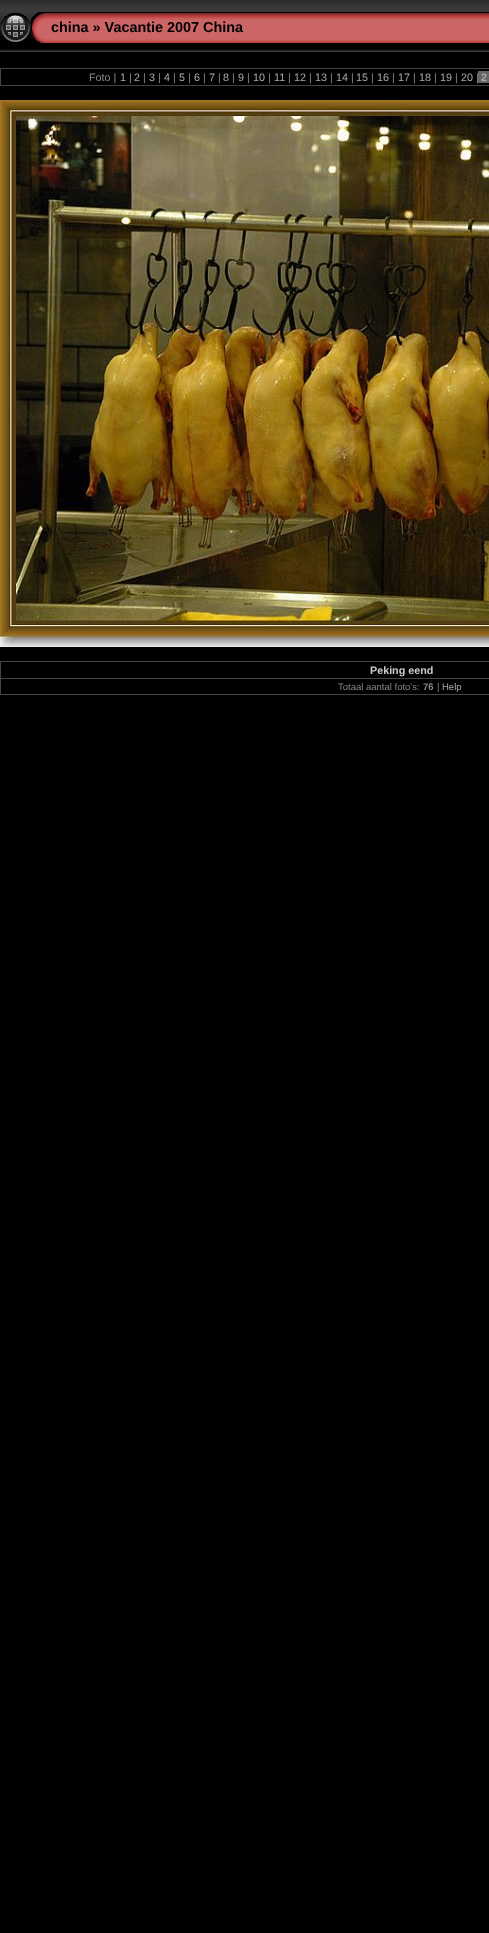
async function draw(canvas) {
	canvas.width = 489;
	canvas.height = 1933;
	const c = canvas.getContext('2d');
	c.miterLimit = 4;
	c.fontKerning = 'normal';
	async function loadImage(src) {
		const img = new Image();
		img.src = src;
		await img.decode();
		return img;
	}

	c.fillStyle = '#000';
	c.fillRect(0, 0, 489, 1933);
	c.drawImage(await loadImage('img1.png'), 0, 0, 489, 52);
	c.drawImage(await loadImage('img2.png'), 1, 13, 29, 29);
	c.drawImage(await loadImage('img3.png'), 31, 12, 20, 31);
	c.drawImage(await loadImage('img4.png'), 51, 12, 438, 31);
	c.font = 'bold 14.4px Liberation Sans';
	c.fillText('china » Vacantie 2007 China', 51, 32);
	for (const [x, y, w, h, color] of [
		[0, 68, 489, 1, '#444'],
		[0, 85, 489, 1, '#444'],
		[0, 68, 1, 18, '#444'],
	]) {
		c.fillStyle = color;
		c.fillRect(x, y, w, h);
	}
	c.font = '10.75px Liberation Sans';
	c.fillStyle = '#888';
	c.fillText('Foto |', 89, 81);
	c.fillStyle = '#aaa';
	c.fillText('1', 120, 81);
	c.fillStyle = '#888';
	c.fillText('|', 129, 81);
	c.fillStyle = '#aaa';
	c.fillText('2', 134, 81);
	c.fillStyle = '#888';
	c.fillText('|', 143, 81);
	c.fillStyle = '#aaa';
	c.fillText('3', 149, 81);
	c.fillStyle = '#888';
	c.fillText('|', 158, 81);
	c.fillStyle = '#aaa';
	c.fillText('4', 164, 81);
	c.fillStyle = '#888';
	c.fillText('|', 173, 81);
	c.fillStyle = '#aaa';
	c.fillText('5', 179, 81);
	c.fillStyle = '#888';
	c.fillText('|', 188, 81);
	c.fillStyle = '#aaa';
	c.fillText('6', 194, 81);
	c.fillStyle = '#888';
	c.fillText('|', 203, 81);
	c.fillStyle = '#aaa';
	c.fillText('7', 209, 81);
	c.fillStyle = '#888';
	c.fillText('|', 218, 81);
	c.fillStyle = '#aaa';
	c.fillText('8', 223, 81);
	c.fillStyle = '#888';
	c.fillText('|', 232, 81);
	c.fillStyle = '#aaa';
	c.fillText('9', 238, 81);
	c.fillStyle = '#888';
	c.fillText('|', 247, 81);
	c.fillStyle = '#aaa';
	c.fillText('10', 253, 81);
	c.fillStyle = '#888';
	c.fillText('|', 268, 81);
	c.fillStyle = '#aaa';
	c.fillText('11', 274, 81);
	c.fillStyle = '#888';
	c.fillText('|', 288, 81);
	c.fillStyle = '#aaa';
	c.fillText('12', 294, 81);
	c.fillStyle = '#888';
	c.fillText('|', 309, 81);
	c.fillStyle = '#aaa';
	c.fillText('13', 315, 81);
	c.fillStyle = '#888';
	c.fillText('|', 330, 81);
	c.fillStyle = '#aaa';
	c.fillText('14', 336, 81);
	c.fillStyle = '#888';
	c.fillText('|', 351, 81);
	c.fillStyle = '#aaa';
	c.fillText('15', 356, 81);
	c.fillStyle = '#888';
	c.fillText('|', 371, 81);
	c.fillStyle = '#aaa';
	c.fillText('16', 377, 81);
	c.fillStyle = '#888';
	c.fillText('|', 392, 81);
	c.fillStyle = '#aaa';
	c.fillText('17', 398, 81);
	c.fillStyle = '#888';
	c.fillText('|', 413, 81);
	c.fillStyle = '#aaa';
	c.fillText('18', 419, 81);
	c.fillStyle = '#888';
	c.fillText('|', 434, 81);
	c.fillStyle = '#aaa';
	c.fillText('19', 440, 81);
	c.fillStyle = '#888';
	c.fillText('|', 455, 81);
	c.fillStyle = '#aaa';
	c.fillText('20', 461, 81);
	c.fillStyle = '#888';
	c.fillText('|', 476, 81);
	c.fillStyle = '#666';
	c.fillRect(478, 71, 11, 12);
	c.font = 'bold 10.75px Liberation Sans';
	c.fillStyle = '#aaa';
	c.fillText('2', 481, 81);
	c.drawImage(await loadImage('img5.png'), 0, 100, 489, 547);
	for (const [x, y, w, h, color] of [
		[0, 661, 489, 1, '#444'],
		[0, 694, 489, 1, '#444'],
		[0, 661, 1, 34, '#444'],
	]) {
		c.fillStyle = color;
		c.fillRect(x, y, w, h);
	}
	c.fillStyle = '#ccc';
	c.fillText('Peking eend', 370, 674);
	c.fillStyle = '#444';
	c.fillRect(0, 678, 489, 1);
	c.font = '9.5px Liberation Sans';
	c.fillStyle = '#888';
	c.fillText('Totaal aantal foto\'s:', 338, 690);
	c.font = 'bold 9.5px Liberation Sans';
	c.fillText('76', 423, 690);
	c.font = '9.5px Liberation Sans';
	c.fillText('|', 437, 690);
	c.fillStyle = '#aaa';
	c.fillText('Help', 442, 690);
}

draw(document.querySelector('canvas'));
